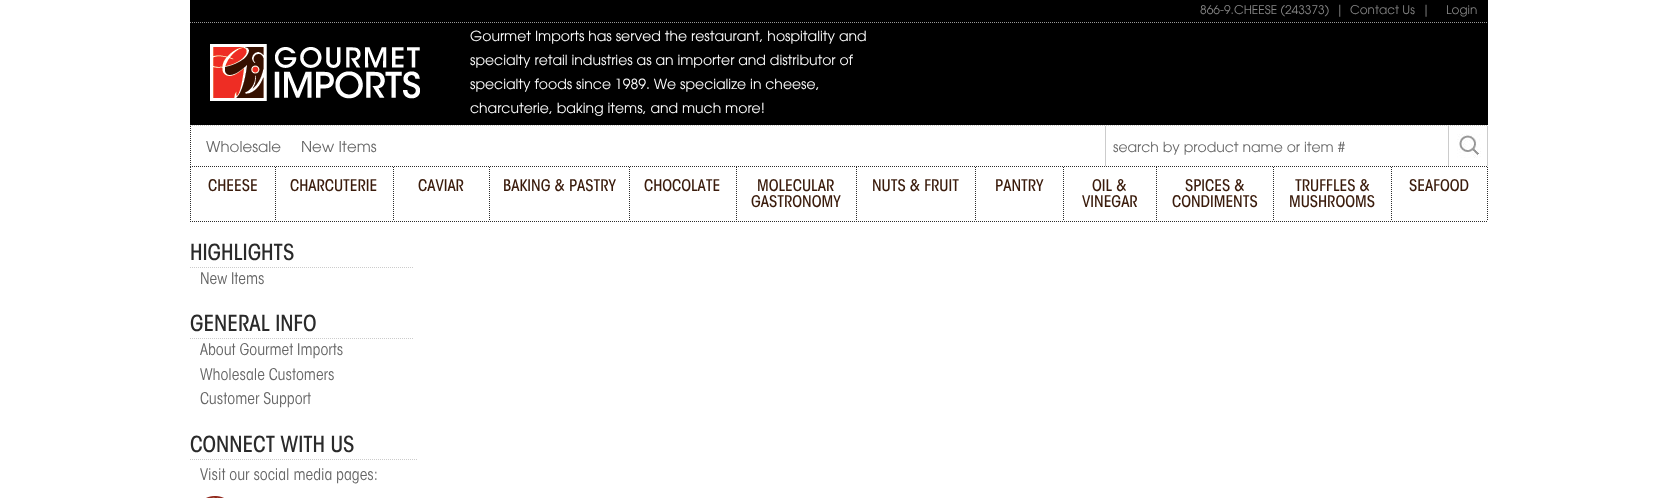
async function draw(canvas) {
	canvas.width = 1677;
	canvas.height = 498;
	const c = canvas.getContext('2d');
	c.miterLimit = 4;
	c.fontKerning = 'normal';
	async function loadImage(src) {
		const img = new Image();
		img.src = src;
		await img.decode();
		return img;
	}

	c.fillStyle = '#fff';
	c.fillRect(0, 0, 1677, 498);
	c.fillStyle = '#000';
	c.fillRect(190, 0, 1298, 125);
	c.font = '12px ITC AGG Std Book';
	c.fillStyle = '#868686';
	for (const [text, x, y] of [
		['866-9.CHEESE (243373)  |', 1200, 14],
		['Contact Us', 1350, 14],
		['|', 1422, 14],
		['Login', 1446, 14],
	]) {
		c.fillText(text, x, y);
	}
	c.beginPath();
	c.moveTo(870, 22.5);
	c.lineTo(1488, 22.5);
	c.strokeStyle = '#999';
	c.setLineDash([1, 1]);
	c.stroke();
	c.beginPath();
	c.moveTo(190, 22.5);
	c.lineTo(420, 22.5);
	c.stroke();
	c.drawImage(await loadImage('img1.png'), 210, 44, 210, 57);
	c.beginPath();
	c.moveTo(420, 22.5);
	c.lineTo(870, 22.5);
	c.stroke();
	c.font = '14px ITC AGG Std Book';
	c.fillStyle = '#fff';
	for (const [text, x, y] of [
		['Gourmet Imports has served the restaurant, hospitality and', 470, 41],
		['specialty retail industries as an importer and distributor of', 470, 65],
		['specialty foods since 1989. We specialize in cheese,', 470, 89],
		['charcuterie, baking items, and much more!', 470, 113],
	]) {
		c.fillText(text, x, y);
	}
	c.beginPath();
	c.moveTo(190, 125.5);
	c.lineTo(1488, 125.5);
	c.strokeStyle = '#ccc';
	c.stroke();
	c.beginPath();
	c.moveTo(190.5, 126);
	c.lineTo(190.5, 166);
	c.strokeStyle = '#2d2d2d';
	c.stroke();
	c.font = '15px ITC AGG Std Book';
	c.fillStyle = '#666';
	c.fillText('Wholesale', 206, 152);
	c.fillText('New Items', 301, 152);
	c.fillStyle = '#ccc';
	c.fillRect(1105, 126, 1, 42);
	c.font = '14px ITC AGG Std Book';
	c.fillStyle = '#666';
	c.fillText('search by product name or item #', 1113, 152);
	c.drawImage(await loadImage('img2.png'), 1457, 134, 24, 24);
	for (const [x, y, w, h, color] of [
		[1487, 126, 1, 40, '#ccc'],
		[1448, 126, 1, 40, '#ccc'],
		[1105, 166, 1, 2, '#fff'],
	]) {
		c.fillStyle = color;
		c.fillRect(x, y, w, h);
	}
	c.beginPath();
	c.moveTo(190, 166.5);
	c.lineTo(1488, 166.5);
	c.stroke();
	c.beginPath();
	c.moveTo(190, 221.5);
	c.lineTo(1488, 221.5);
	c.stroke();
	c.beginPath();
	c.moveTo(275.5, 167);
	c.lineTo(275.5, 220);
	c.stroke();
	c.beginPath();
	c.moveTo(190.5, 167);
	c.lineTo(190.5, 220);
	c.stroke();
	c.font = '16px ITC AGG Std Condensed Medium';
	c.fillStyle = '#3a1b0b';
	c.fillText('CHEESE', 208, 191);
	c.beginPath();
	c.moveTo(393.5, 167);
	c.lineTo(393.5, 220);
	c.stroke();
	c.fillText('CHARCUTERIE', 290, 191);
	c.beginPath();
	c.moveTo(489.5, 167);
	c.lineTo(489.5, 220);
	c.stroke();
	c.fillText('CAVIAR', 418, 191);
	c.beginPath();
	c.moveTo(629.5, 167);
	c.lineTo(629.5, 220);
	c.stroke();
	c.fillText('BAKING & PASTRY', 503, 191);
	c.beginPath();
	c.moveTo(736.5, 167);
	c.lineTo(736.5, 220);
	c.stroke();
	c.fillText('CHOCOLATE', 644, 191);
	c.beginPath();
	c.moveTo(856.5, 167);
	c.lineTo(856.5, 220);
	c.stroke();
	c.fillText('MOLECULAR', 757, 191);
	c.fillText('GASTRONOMY', 751, 207);
	c.beginPath();
	c.moveTo(975.5, 167);
	c.lineTo(975.5, 220);
	c.stroke();
	c.fillText('NUTS & FRUIT', 872, 191);
	c.beginPath();
	c.moveTo(1063.5, 167);
	c.lineTo(1063.5, 220);
	c.stroke();
	c.fillText('PANTRY', 995, 191);
	c.beginPath();
	c.moveTo(1156.5, 167);
	c.lineTo(1156.5, 220);
	c.stroke();
	c.fillText('OIL &', 1092, 191);
	c.fillText('VINEGAR', 1082, 207);
	c.beginPath();
	c.moveTo(1273.5, 167);
	c.lineTo(1273.5, 220);
	c.stroke();
	c.fillText('SPICES &', 1185, 191);
	c.fillText('CONDIMENTS', 1172, 207);
	c.beginPath();
	c.moveTo(1391.5, 167);
	c.lineTo(1391.5, 220);
	c.stroke();
	c.fillText('TRUFFLES &', 1295, 191);
	c.fillText('MUSHROOMS', 1289, 207);
	c.beginPath();
	c.moveTo(1487.5, 167);
	c.lineTo(1487.5, 220);
	c.stroke();
	c.fillText('SEAFOOD', 1409, 191);
	c.font = '22px ITC AGG Std Condensed Medium';
	c.fillStyle = '#2a2a2a';
	c.fillText('HIGHLIGHTS', 190, 260);
	c.beginPath();
	c.moveTo(190, 267.5);
	c.lineTo(414, 267.5);
	c.strokeStyle = '#ccc';
	c.stroke();
	c.font = '16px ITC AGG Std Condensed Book';
	c.fillStyle = '#666';
	c.fillText('New Items', 200, 284);
	c.font = '22px ITC AGG Std Condensed Medium';
	c.fillStyle = '#2a2a2a';
	c.fillText('GENERAL INFO', 190, 331);
	c.beginPath();
	c.moveTo(190, 338.5);
	c.lineTo(414, 338.5);
	c.stroke();
	c.font = '16px ITC AGG Std Condensed Book';
	c.fillStyle = '#666';
	for (const [text, x, y] of [
		['About Gourmet Imports', 200, 355],
		['Wholesale Customers', 200, 380],
		['Customer Support', 200, 404],
	]) {
		c.fillText(text, x, y);
	}
	c.beginPath();
	c.moveTo(190, 459.5);
	c.lineTo(418, 459.5);
	c.stroke();
	c.font = '22px ITC AGG Std Condensed Medium';
	c.fillStyle = '#2a2a2a';
	c.fillText('CONNECT WITH US', 190, 452);
	c.font = '16px ITC AGG Std Condensed Book';
	c.fillStyle = '#666';
	c.fillText('Visit our social media pages:', 200, 480);
	c.drawImage(await loadImage('img3.png'), 206, 496, 18, 2);
}

draw(document.querySelector('canvas'));
